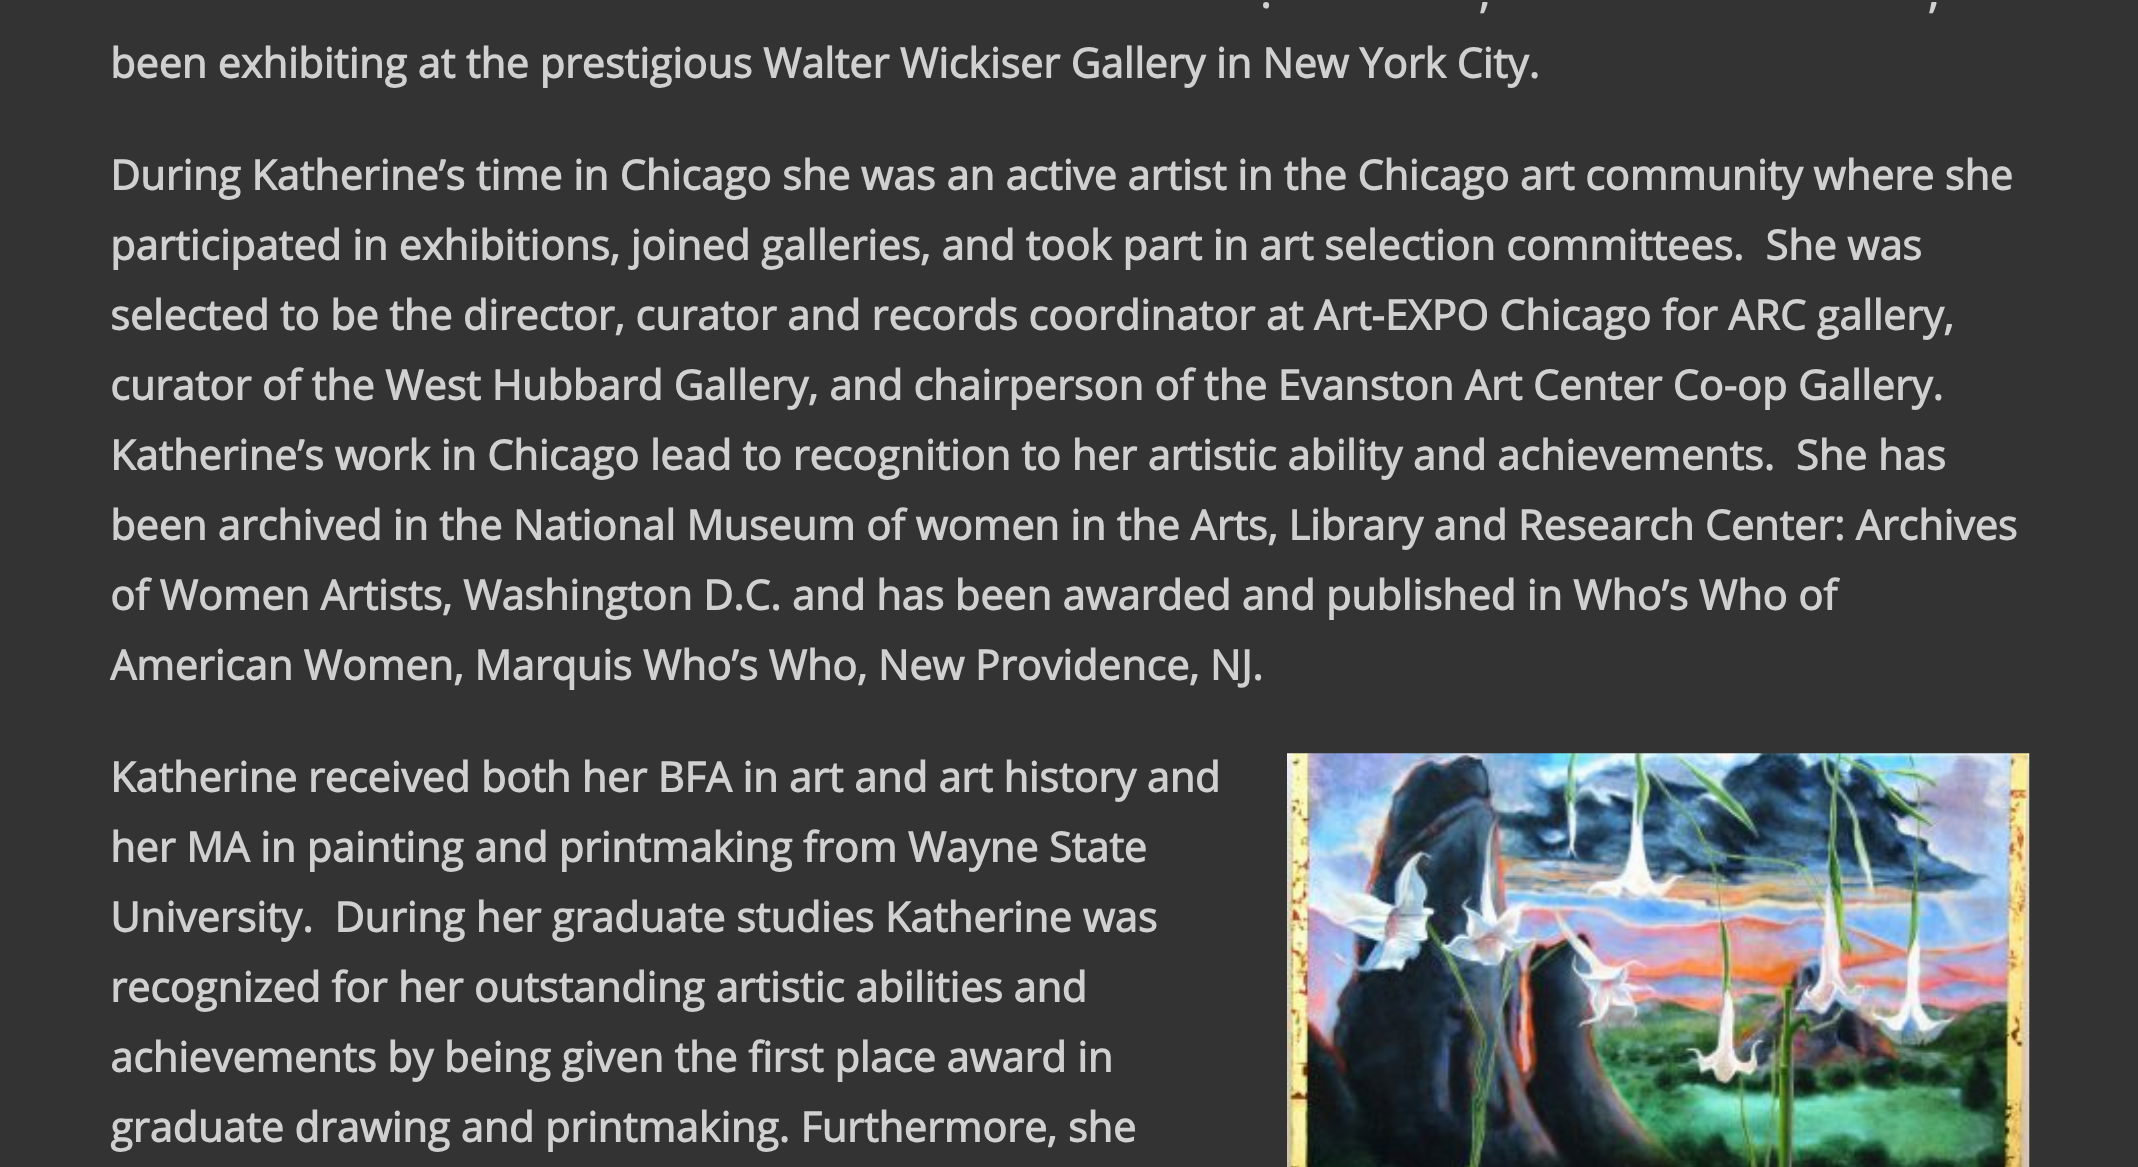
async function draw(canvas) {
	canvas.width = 2138;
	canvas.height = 1167;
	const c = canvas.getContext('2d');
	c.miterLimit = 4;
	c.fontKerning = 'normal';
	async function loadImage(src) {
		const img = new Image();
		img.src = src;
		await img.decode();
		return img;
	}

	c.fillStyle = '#333';
	c.fillRect(0, 0, 2138, 1167);
	c.font = 'bold 41.25px Open Sans';
	c.fillStyle = '#d0d0d0';
	for (const [text, x, y] of [
		['.', 1260, 8],
		[',', 1479, 8],
		[',', 1928, 8],
		['been exhibiting at the prestigious Walter Wickiser Gallery in New York City.', 110, 78],
		['During Katherine’s time in Chicago she was an active artist in the Chicago art community where she', 110, 190],
		['participated in exhibitions, joined galleries, and took part in art selection committees.  She was', 110, 260],
		['selected to be the director, curator and records coordinator at Art-EXPO Chicago for ARC gallery,', 110, 330],
		['curator of the West Hubbard Gallery, and chairperson of the Evanston Art Center Co-op Gallery.', 110, 400],
		['Katherine’s work in Chicago lead to recognition to her artistic ability and achievements.  She has', 110, 470],
		['been archived in the National Museum of women in the Arts, Library and Research Center: Archives', 110, 540],
		['of Women Artists, Washington D.C. and has been awarded and published in Who’s Who of', 110, 610],
		['American Women, Marquis Who’s Who, New Providence, NJ.', 110, 680],
		['Katherine received both her BFA in art and art history and', 110, 792],
		['her MA in painting and printmaking from Wayne State', 110, 862],
		['University.  During her graduate studies Katherine was', 110, 932],
		['recognized for her outstanding artistic abilities and', 110, 1002],
		['achievements by being given the first place award in', 110, 1072],
		['graduate drawing and printmaking. Furthermore, she', 110, 1142],
	]) {
		c.fillText(text, x, y);
	}
	c.drawImage(await loadImage('img1.png'), 1287, 753, 743, 414);
}

draw(document.querySelector('canvas'));
